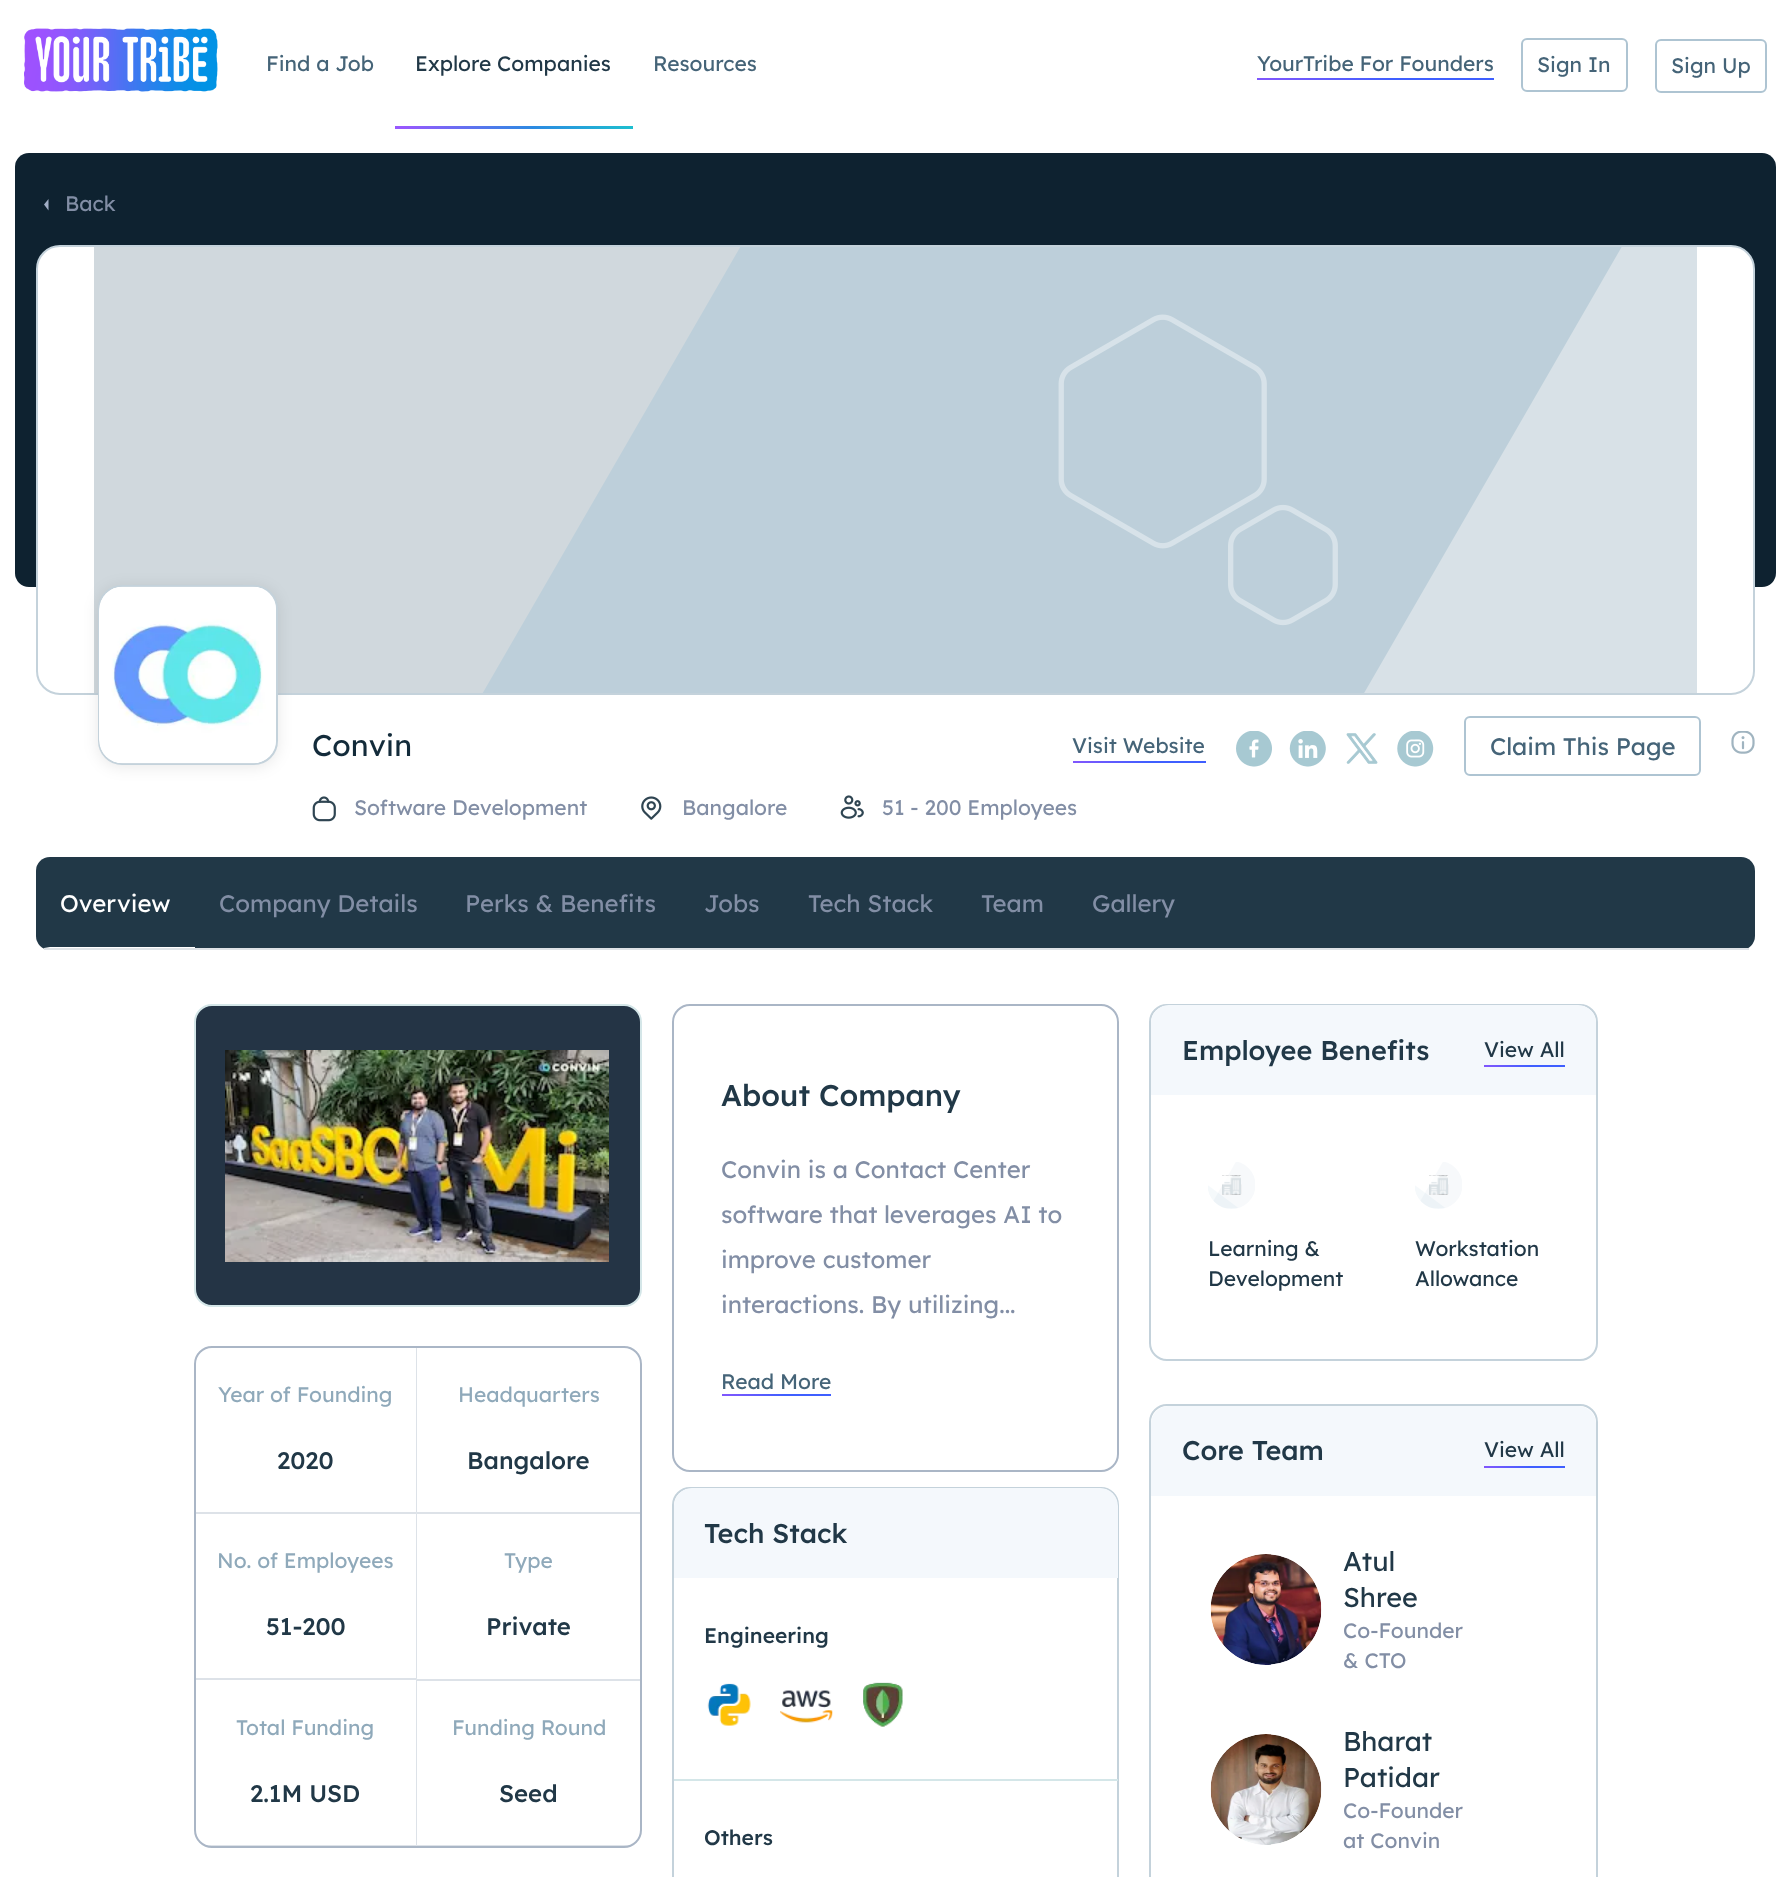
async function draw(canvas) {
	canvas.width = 1790;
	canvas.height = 1877;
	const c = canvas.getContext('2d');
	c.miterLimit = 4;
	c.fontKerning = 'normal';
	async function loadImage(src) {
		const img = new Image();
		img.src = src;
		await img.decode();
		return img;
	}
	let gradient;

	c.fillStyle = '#fff';
	c.fillRect(0, 0, 1790, 1877);
	c.drawImage(await loadImage('img1.png'), 24, 28, 194, 64);
	c.font = '21px Lexend';
	c.fillStyle = '#456478';
	c.fillText('Find a Job', 266, 71);
	c.fillStyle = '#213847';
	c.fillText('Explore Companies', 415, 71);
	gradient = c.createLinearGradient(395, 121, 665, 136);
	gradient.addColorStop(0.03, '#9858fe');
	gradient.addColorStop(0.51, '#2c8ae2');
	gradient.addColorStop(1, '#18d0c9');
	c.fillStyle = gradient;
	c.fillRect(395, 126, 238, 3);
	c.fillStyle = '#456478';
	c.fillText('Resources', 653, 71);
	c.fillText('YourTribe For Founders', 1257, 71);
	gradient = c.createLinearGradient(1257, 72, 1494, 85);
	gradient.addColorStop(0.04, '#7e57fd');
	gradient.addColorStop(0.58, '#3f5fff');
	c.fillStyle = gradient;
	c.fillRect(1257, 78, 237, 2);
	c.beginPath();
	c.roundRect(1522, 39, 105, 52, 5);
	c.strokeStyle = '#aec4d2';
	c.lineWidth = 2;
	c.stroke();
	c.fillStyle = '#456478';
	c.fillText('Sign In', 1537, 72);
	c.beginPath();
	c.roundRect(1656, 40, 110, 52, 5);
	c.stroke();
	c.fillText('Sign Up', 1671, 73);
	c.fillStyle = '#0e2230';
	c.beginPath();
	c.roundRect(15, 153, 1761, 434, 14);
	c.fill();
	c.fillStyle = '#a1aec6';
	c.beginPath();
	c.moveTo(44, 204.5);
	c.lineTo(48.5, 199);
	c.lineTo(48.5, 210.5);
	c.closePath();
	c.fill();
	c.fillStyle = '#828ea5';
	c.fillText('Back', 65, 211);
	c.fillStyle = '#fff';
	c.beginPath();
	c.roundRect(37, 246, 1717, 448, 23);
	c.fill();
	c.strokeStyle = '#c4d2db';
	c.stroke();
	c.drawImage(await loadImage('img2.png'), 94, 247, 1603, 446);
	c.fillStyle = '#00000017';
	c.filter = 'blur(7.5px)';
	c.beginPath();
	c.roundRect(98, 587, 180, 180, 24);
	c.fill();
	c.filter = 'none';
	c.fillStyle = '#fff';
	c.beginPath();
	c.roundRect(99, 586, 178, 178, 23);
	c.fill();
	c.stroke();
	c.drawImage(await loadImage('img3.png'), 99, 586, 177, 178);
	c.font = '30px Lexend';
	c.fillStyle = '#132b3a';
	c.fillText('Convin', 312, 756);
	c.font = '21px Lexend';
	c.fillStyle = '#456478';
	c.fillText('Visit Website', 1072, 753);
	gradient = c.createLinearGradient(1073, 758, 1206, 765);
	gradient.addColorStop(0.04, '#7e57fd');
	gradient.addColorStop(0.58, '#3f5fff');
	c.fillStyle = gradient;
	c.fillRect(1073, 761, 133, 2);
	c.drawImage(await loadImage('img4.png'), 1236, 731, 36, 36);
	c.drawImage(await loadImage('img5.png'), 1289, 731, 37, 36);
	c.drawImage(await loadImage('img6.png'), 1346, 733, 32, 31);
	c.drawImage(await loadImage('img7.png'), 1397, 731, 37, 36);
	c.beginPath();
	c.roundRect(1465, 717, 235, 58, 5);
	c.strokeStyle = '#aec4d2';
	c.stroke();
	c.font = '24px Lexend';
	c.fillStyle = '#456478';
	c.fillText('Claim This Page', 1490, 755);
	c.drawImage(await loadImage('img8.png'), 1731, 731, 24, 23);
	c.drawImage(await loadImage('img9.png'), 312, 796, 24, 26);
	c.font = '21px Lexend';
	c.fillStyle = '#828ea5';
	c.fillText('Software Development', 354, 815);
	c.drawImage(await loadImage('img10.png'), 641, 796, 21, 24);
	c.fillText('Bangalore', 682, 815);
	c.drawImage(await loadImage('img11.png'), 840, 795, 24, 24);
	c.fillText('51 - 200 Employees', 882, 815);
	c.fillStyle = '#213847';
	c.beginPath();
	c.roundRect(36, 857, 1719, 93, 14);
	c.fill();
	c.fillStyle = '#dee2e6';
	c.fillRect(44, 948, 1705, 2);
	c.font = '24px Lexend';
	c.fillStyle = '#fff';
	c.fillText('Overview', 60, 912);
	c.beginPath();
	c.moveTo(195, 948);
	c.lineTo(50, 948);
	c.lineTo(44, 947);
	c.lineTo(195, 947);
	c.closePath();
	c.fill();
	c.fillStyle = '#828ea5';
	for (const [text, x, y] of [
		['Company Details', 219, 912],
		['Perks & Benefits', 465, 912],
		['Jobs', 704, 912],
		['Tech Stack', 808, 912],
		['Team', 981, 912],
		['Gallery', 1092, 912],
	]) {
		c.fillText(text, x, y);
	}
	c.fillStyle = '#243445';
	c.beginPath();
	c.roundRect(195, 1005, 446, 301, 17);
	c.fill();
	c.strokeStyle = '#d4e6e8';
	c.stroke();
	c.drawImage(await loadImage('img12.png'), 225, 1050, 384, 212);
	c.beginPath();
	c.roundRect(673, 1005, 445, 466, 17);
	c.strokeStyle = '#aab6c6';
	c.stroke();
	c.font = '500 30px Lexend';
	c.fillStyle = '#213847';
	c.fillText('About Company', 721, 1106);
	c.font = '24px Lexend';
	c.fillStyle = '#828ea5';
	for (const [text, x, y] of [
		['Convin is a Contact Center', 721, 1178],
		['software that leverages AI to', 721, 1223],
		['improve customer', 721, 1268],
		['interactions. By utilizing...', 721, 1313],
	]) {
		c.fillText(text, x, y);
	}
	c.font = '21px Lexend';
	c.fillStyle = '#456478';
	c.fillText('Read More', 721, 1389);
	gradient = c.createLinearGradient(722, 1391, 831, 1397);
	gradient.addColorStop(0.04, '#7e57fd');
	gradient.addColorStop(0.58, '#3f5fff');
	c.fillStyle = gradient;
	c.fillRect(722, 1394, 109, 2);
	c.beginPath();
	c.roundRect(1150, 1005, 447, 355, 17);
	c.strokeStyle = '#c4d2db';
	c.stroke();
	c.save();
	c.beginPath();
	c.roundRect(1151, 1005, 445, 354, 17);
	c.clip();
	c.fillStyle = '#f4f8fc';
	c.beginPath();
	c.roundRect(1151, 1005, 445, 90, [18, 18, 0, 0]);
	c.fill();
	c.restore();
	c.font = '500 27px Lexend';
	c.fillStyle = '#213847';
	c.fillText('Employee Benefits', 1182, 1060);
	c.font = '21px Lexend';
	c.fillText('View All', 1484, 1057);
	gradient = c.createLinearGradient(1484, 1064, 1564, 1068);
	gradient.addColorStop(0.04, '#7e57fd');
	gradient.addColorStop(0.58, '#3f5fff');
	c.fillStyle = gradient;
	c.fillRect(1484, 1065, 81, 2);
	c.drawImage(await loadImage('img13.png'), 1208, 1162, 47, 47);
	c.fillStyle = '#213847';
	c.fillText('Learning &', 1208, 1256);
	c.fillText('Development', 1208, 1286);
	c.drawImage(await loadImage('img13.png'), 1415, 1162, 47, 47);
	c.fillText('Workstation', 1415, 1256);
	c.fillText('Allowance', 1415, 1286);
	c.beginPath();
	c.roundRect(195, 1347, 446, 500, 17);
	c.strokeStyle = '#aab6c6';
	c.stroke();
	c.fillStyle = '#aab6c666';
	c.beginPath();
	c.moveTo(417, 1347);
	c.lineTo(417, 1514);
	c.lineTo(416, 1512);
	c.lineTo(416, 1347);
	c.closePath();
	c.fill();
	c.beginPath();
	c.moveTo(417, 1514);
	c.lineTo(195, 1514);
	c.lineTo(195, 1512);
	c.lineTo(416, 1512);
	c.closePath();
	c.fill();
	c.fillStyle = '#8fa9ba';
	c.fillText('Year of Founding', 218, 1402);
	c.font = '500 24px Lexend';
	c.fillStyle = '#213847';
	c.fillText('2020', 277, 1469);
	c.fillStyle = '#aab6c666';
	c.fillRect(417, 1512, 224, 2);
	c.font = '21px Lexend';
	c.fillStyle = '#8fa9ba';
	c.fillText('Headquarters', 458, 1402);
	c.font = '500 24px Lexend';
	c.fillStyle = '#213847';
	c.fillText('Bangalore', 467, 1469);
	c.fillStyle = '#dde2e8';
	c.beginPath();
	c.moveTo(417, 1514);
	c.lineTo(417, 1680);
	c.lineTo(416, 1678);
	c.lineTo(416, 1514);
	c.closePath();
	c.fill();
	c.fillStyle = '#aab6c666';
	c.beginPath();
	c.moveTo(417, 1680);
	c.lineTo(195, 1680);
	c.lineTo(195, 1678);
	c.lineTo(416, 1678);
	c.closePath();
	c.fill();
	c.font = '21px Lexend';
	c.fillStyle = '#8fa9ba';
	c.fillText('No. of Employees', 217, 1568);
	c.font = '500 24px Lexend';
	c.fillStyle = '#213847';
	c.fillText('51-200', 266, 1635);
	c.fillStyle = '#aab6c666';
	c.fillRect(417, 1679, 224, 2);
	c.font = '21px Lexend';
	c.fillStyle = '#8fa9ba';
	c.fillText('Type', 504, 1568);
	c.font = '500 24px Lexend';
	c.fillStyle = '#213847';
	c.fillText('Private', 486, 1635);
	c.fillStyle = '#dde2e8';
	c.beginPath();
	c.moveTo(417, 1680);
	c.lineTo(417, 1846);
	c.lineTo(416, 1845);
	c.lineTo(416, 1680);
	c.closePath();
	c.fill();
	c.fillStyle = '#aab6c666';
	c.beginPath();
	c.moveTo(417, 1846);
	c.lineTo(206, 1846);
	c.lineTo(204, 1845);
	c.lineTo(416, 1845);
	c.closePath();
	c.fill();
	c.font = '21px Lexend';
	c.fillStyle = '#8fa9ba';
	c.fillText('Total Funding', 236, 1735);
	c.font = '500 24px Lexend';
	c.fillStyle = '#213847';
	c.fillText('2.1M USD', 250, 1802);
	c.save();
	c.beginPath();
	c.roundRect(195, 1347, 446, 500, 17);
	c.clip();
	c.fillStyle = '#aab6c666';
	c.fillRect(417, 1845, 215, 2);
	c.restore();
	c.font = '21px Lexend';
	c.fillStyle = '#8fa9ba';
	c.fillText('Funding Round', 452, 1735);
	c.font = '500 24px Lexend';
	c.fillStyle = '#213847';
	c.fillText('Seed', 499, 1802);
	c.beginPath();
	c.roundRect(673, 1488, 445, 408, 17);
	c.strokeStyle = '#c4d2db';
	c.stroke();
	c.save();
	c.beginPath();
	c.roundRect(674, 1488, 444, 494, 17);
	c.clip();
	c.fillStyle = '#f4f8fc';
	c.beginPath();
	c.roundRect(674, 1488, 444, 90, [18, 18, 0, 0]);
	c.fill();
	c.restore();
	c.font = '500 27px Lexend';
	c.fillText('Tech Stack', 704, 1543);
	c.fillStyle = '#d4e6e8';
	c.fillRect(674, 1779, 444, 2);
	c.font = '500 21px Lexend';
	c.fillStyle = '#213847';
	c.fillText('Engineering', 704, 1643);
	c.drawImage(await loadImage('img14.png'), 707, 1683, 44, 43);
	c.drawImage(await loadImage('img15.png'), 780, 1690, 53, 33);
	c.drawImage(await loadImage('img16.png'), 863, 1682, 40, 45);
	c.fillText('Others', 704, 1845);
	c.beginPath();
	c.roundRect(1150, 1405, 447, 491, 17);
	c.stroke();
	c.save();
	c.beginPath();
	c.roundRect(1151, 1406, 445, 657, 17);
	c.clip();
	c.fillStyle = '#f4f8fc';
	c.beginPath();
	c.roundRect(1151, 1406, 445, 90, [18, 18, 0, 0]);
	c.fill();
	c.restore();
	c.font = '500 27px Lexend';
	c.fillText('Core Team', 1182, 1460);
	c.font = '21px Lexend';
	c.fillText('View All', 1484, 1457);
	gradient = c.createLinearGradient(1484, 1464, 1564, 1468);
	gradient.addColorStop(0.04, '#7e57fd');
	gradient.addColorStop(0.58, '#3f5fff');
	c.fillStyle = gradient;
	c.fillRect(1484, 1466, 81, 2);
	c.drawImage(await loadImage('img17.png'), 1210, 1554, 112, 111);
	c.font = '27px Lexend';
	c.fillStyle = '#213847';
	c.fillText('Atul', 1343, 1571);
	c.fillText('Shree', 1343, 1607);
	c.font = '21px Lexend';
	c.fillStyle = '#828ea5';
	c.fillText('Co-Founder', 1343, 1638);
	c.fillText('& CTO', 1343, 1668);
	c.drawImage(await loadImage('img18.png'), 1210, 1734, 112, 111);
	c.font = '27px Lexend';
	c.fillStyle = '#213847';
	c.fillText('Bharat', 1343, 1751);
	c.fillText('Patidar', 1343, 1787);
	c.font = '21px Lexend';
	c.fillStyle = '#828ea5';
	c.fillText('Co-Founder', 1343, 1818);
	c.fillText('at Convin', 1343, 1848);
}

draw(document.querySelector('canvas'));
